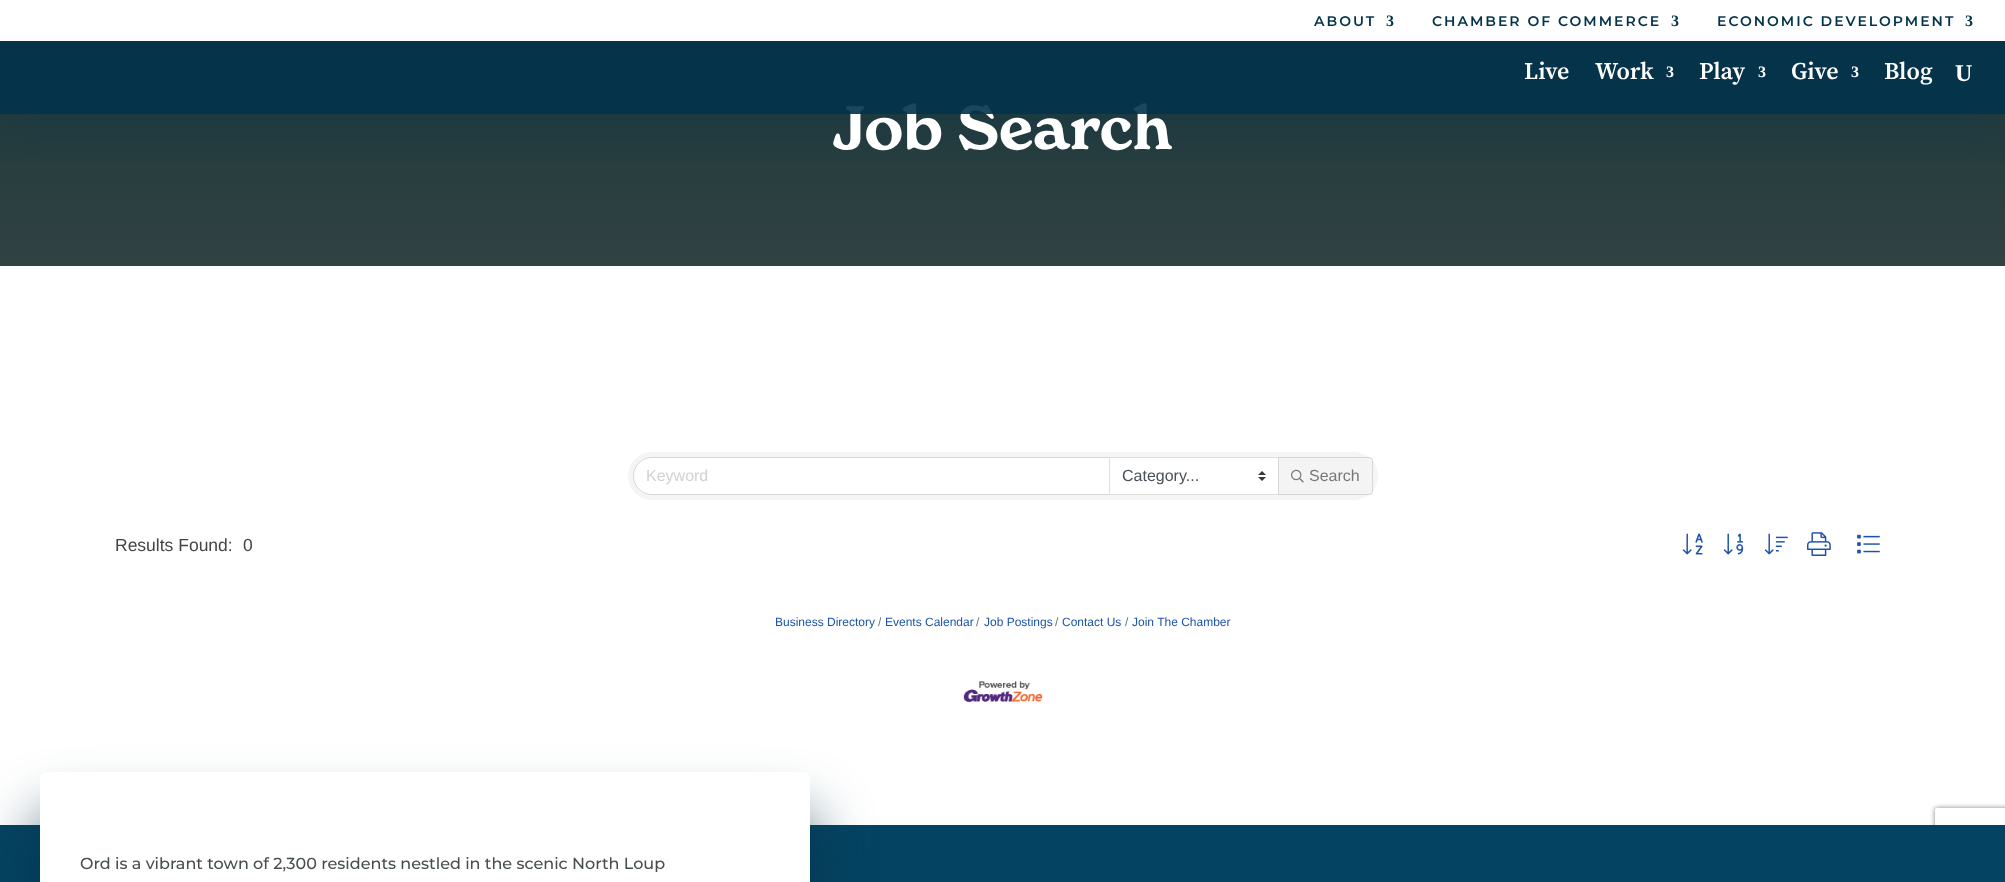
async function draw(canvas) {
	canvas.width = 2005;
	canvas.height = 882;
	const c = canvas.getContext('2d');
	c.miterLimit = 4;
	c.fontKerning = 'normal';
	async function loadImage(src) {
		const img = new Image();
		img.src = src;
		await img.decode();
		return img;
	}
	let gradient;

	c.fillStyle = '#fff';
	c.fillRect(0, 0, 2005, 882);
	gradient = c.createLinearGradient(1003, 0, 1003, 266);
	gradient.addColorStop(0, '#1a3739');
	gradient.addColorStop(1, '#314243');
	c.fillStyle = gradient;
	c.fillRect(0, 41, 2005, 225);
	c.save();
	c.beginPath();
	c.rect(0, 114, 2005, 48);
	c.clip();
	c.fillStyle = '#02334b40';
	c.filter = 'blur(20px)';
	c.beginPath();
	c.rect(0, 50, 2005, 84);
	c.fill();
	c.filter = 'none';
	c.restore();
	c.fillStyle = '#fff';
	c.fillRect(0, 15, 2005, 15);
	c.letterSpacing = '2px';
	c.font = '100 14px "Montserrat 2"';
	c.fillStyle = '#02334b';
	c.fillText('ABOUT', 1314, 26);
	c.font = 'bold 16px Liberation Serif';
	c.fillText('3', 1386, 26);
	c.font = '100 14px "Montserrat 2"';
	c.fillText('CHAMBER OF COMMERCE', 1432, 26);
	c.font = 'bold 16px Liberation Serif';
	c.fillText('3', 1671, 26);
	c.font = '100 14px "Montserrat 2"';
	c.fillText('ECONOMIC DEVELOPMENT', 1717, 26);
	c.font = 'bold 16px Liberation Serif';
	c.fillText('3', 1965, 26);
	c.letterSpacing = '0px';
	c.font = '600 60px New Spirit';
	c.fillStyle = '#fff';
	c.fillText('Job Search', 833, 149);
	c.fillStyle = '#02334be6';
	c.fillRect(0, 41, 2005, 73);
	c.font = '600 24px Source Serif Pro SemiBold';
	c.fillStyle = '#fff';
	c.fillText('Live', 1524, 79);
	c.fillText('Work', 1595, 79);
	c.font = 'bold 16px Liberation Serif';
	c.fillText('3', 1666, 77);
	c.font = '600 24px Source Serif Pro SemiBold';
	c.fillText('Play', 1699, 79);
	c.font = 'bold 16px Liberation Serif';
	c.fillText('3', 1758, 77);
	c.font = '600 24px Source Serif Pro SemiBold';
	c.fillText('Give', 1791, 79);
	c.font = 'bold 16px Liberation Serif';
	c.fillText('3', 1851, 77);
	c.font = '600 24px Source Serif Pro SemiBold';
	c.fillText('Blog', 1884, 79);
	c.font = 'bold 24px Liberation Serif';
	c.fillText('U', 1955, 81);
	c.fillStyle = '#f5f5f5';
	c.beginPath();
	c.roundRect(628, 452, 750, 48, 24);
	c.fill();
	c.fillStyle = '#fff';
	c.beginPath();
	c.roundRect(634, 458, 475, 36, [18, 0, 0, 18]);
	c.fill();
	c.beginPath();
	c.roundRect(633.5, 457.5, 476, 37, [18.5, 0, 0, 18.5]);
	c.strokeStyle = '#0000001f';
	c.stroke();
	c.font = '16px Liberation Sans';
	c.fillStyle = '#d2d2d2';
	c.fillText('Keyword', 646, 481);
	c.fillStyle = '#fff';
	c.fillRect(1110, 458, 168, 36);
	c.drawImage(await loadImage('img1.png'), 1258, 471, 8, 10);
	c.strokeStyle = '#dfdfdf';
	c.strokeRect(1109.5, 457.5, 169, 37);
	c.fillStyle = '#495057';
	c.fillText('Category...', 1122, 481);
	c.fillStyle = '#f4f4f4';
	c.beginPath();
	c.roundRect(1278, 457, 95, 38, [0, 4, 4, 0]);
	c.fill();
	c.beginPath();
	c.roundRect(1278.5, 457.5, 94, 37, [0, 3.5, 3.5, 0]);
	c.strokeStyle = '#0000001f';
	c.stroke();
	c.drawImage(await loadImage('img2.png'), 1291, 469, 13, 14);
	c.fillStyle = '#777';
	c.fillText('Search', 1309, 481);
	c.font = '17.5px Liberation Sans';
	c.fillStyle = '#444';
	c.fillText('Results Found:', 115, 551);
	c.fillText('0', 243, 551);
	c.drawImage(await loadImage('img3.png'), 1682, 533, 21, 22);
	c.drawImage(await loadImage('img4.png'), 1723, 533, 21, 22);
	c.drawImage(await loadImage('img5.png'), 1764, 533, 24, 22);
	c.drawImage(await loadImage('img6.png'), 1807, 532, 24, 24);
	c.drawImage(await loadImage('img7.png'), 1857, 534, 23, 20);
	c.font = '12px Liberation Sans';
	c.fillStyle = '#1d54aa';
	c.fillText('Business Directory', 775, 626);
	c.fillStyle = '#6c757d';
	c.fillText('/', 878, 626);
	c.fillStyle = '#1d54aa';
	c.fillText('Events Calendar', 885, 626);
	c.fillStyle = '#6c757d';
	c.fillText('/', 976, 626);
	c.fillStyle = '#1d54aa';
	c.fillText('Job Postings', 984, 626);
	c.fillStyle = '#6c757d';
	c.fillText('/', 1055, 626);
	c.fillStyle = '#1d54aa';
	c.fillText('Contact Us', 1062, 626);
	c.fillStyle = '#6c757d';
	c.fillText('/', 1125, 626);
	c.fillStyle = '#1d54aa';
	c.fillText('Join The Chamber', 1132, 626);
	c.drawImage(await loadImage('img8.png'), 963, 681, 80, 21);
	c.save();
	c.beginPath();
	c.moveTo(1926, 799);
	c.lineTo(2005, 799);
	c.lineTo(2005, 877);
	c.lineTo(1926, 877);
	c.closePath();
	c.moveTo(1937, 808);
	c.lineTo(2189, 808);
	c.bezierCurveTo(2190, 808, 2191, 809, 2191, 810);
	c.lineTo(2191, 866);
	c.bezierCurveTo(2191, 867, 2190, 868, 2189, 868);
	c.lineTo(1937, 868);
	c.bezierCurveTo(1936, 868, 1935, 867, 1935, 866);
	c.lineTo(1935, 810);
	c.bezierCurveTo(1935, 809, 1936, 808, 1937, 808);
	c.closePath();
	c.clip('evenodd');
	c.fillStyle = '#808080';
	c.filter = 'blur(2.5px)';
	c.beginPath();
	c.roundRect(1935, 808, 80, 60, 2);
	c.fill();
	c.filter = 'none';
	c.restore();
	c.fillStyle = '#054362';
	c.fillRect(0, 825, 2005, 57);
	c.fillStyle = '#02334bcc';
	c.filter = 'blur(30px)';
	c.beginPath();
	c.roundRect(40, 817, 770, 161, 6);
	c.fill();
	c.filter = 'none';
	c.fillStyle = '#fff';
	c.beginPath();
	c.roundRect(40, 772, 770, 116, 6);
	c.fill();
	c.font = '100 16px Montserrat';
	c.fillStyle = '#474e50';
	c.fillText('Ord is a vibrant town of 2,300 residents nestled in the scenic North Loup', 80, 869);
}

draw(document.querySelector('canvas'));
